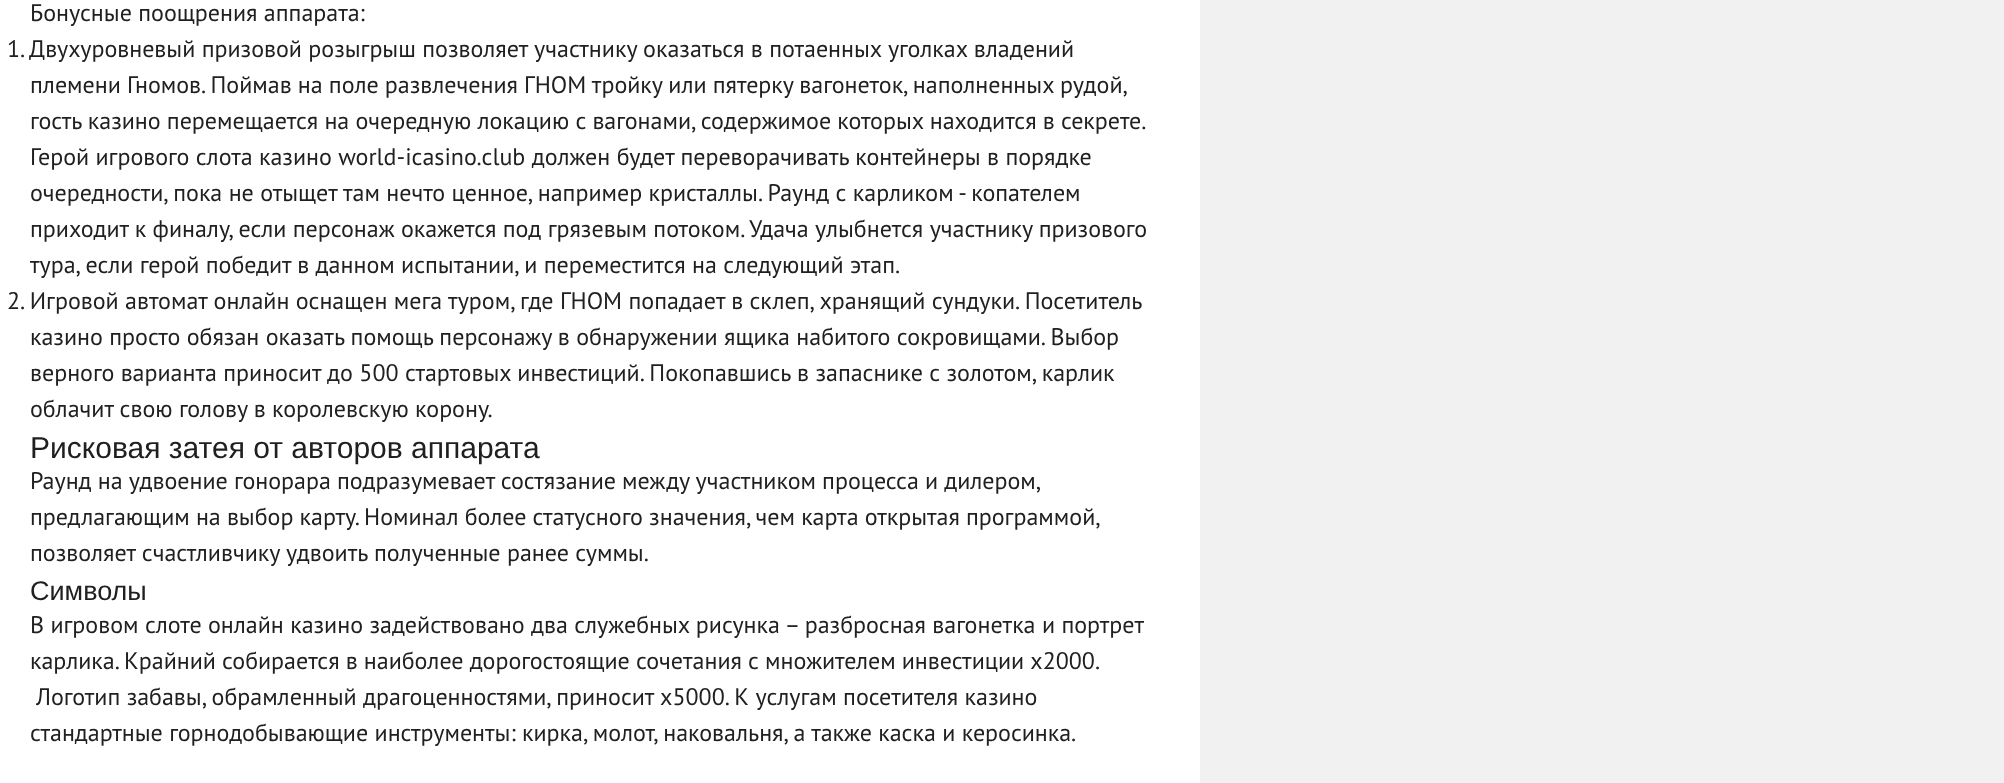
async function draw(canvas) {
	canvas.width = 2004;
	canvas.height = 783;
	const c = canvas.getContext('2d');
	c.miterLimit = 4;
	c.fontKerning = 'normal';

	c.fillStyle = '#f1f1f1';
	c.fillRect(0, 0, 2004, 783);
	c.fillStyle = '#fff';
	c.fillRect(0, 0, 1200, 783);
	c.font = '24px PT Sans';
	c.fillStyle = '#202020';
	c.fillText('Бонусные поощрения аппарата:', 30, 21);
	c.fillText('1. Двухуровневый призовой розыгрыш позволяет участнику оказаться в потаенных уголках владений', 7, 57);
	c.wordSpacing = '-0.2px';
	c.fillText('племени Гномов. Поймав на поле развлечения ГНОМ тройку или пятерку вагонеток, наполненных рудой,', 30, 93);
	c.fillText('гость казино перемещается на очередную локацию с вагонами, содержимое которых находится в секрете.', 30, 129);
	c.wordSpacing = '0px';
	for (const [text, x, y] of [
		['Герой игрового слота казино world-icasino.club должен будет переворачивать контейнеры в порядке', 30, 165],
		['очередности, пока не отыщет там нечто ценное, например кристаллы. Раунд с карликом - копателем', 30, 201],
		['приходит к финалу, если персонаж окажется под грязевым потоком. Удача улыбнется участнику призового', 30, 237],
		['тура, если герой победит в данном испытании, и переместится на следующий этап.', 30, 273],
		['2. Игровой автомат онлайн оснащен мега туром, где ГНОМ попадает в склеп, хранящий сундуки. Посетитель', 7, 309],
		['казино просто обязан оказать помощь персонажу в обнаружении ящика набитого сокровищами. Выбор', 30, 345],
		['верного варианта приносит до 500 стартовых инвестиций. Покопавшись в запаснике с золотом, карлик', 30, 381],
		['облачит свою голову в королевскую корону.', 30, 417],
	]) {
		c.fillText(text, x, y);
	}
	c.font = '30px Liberation Sans';
	c.fillText('Рисковая затея от авторов аппарата', 30, 458);
	c.wordSpacing = '-0.25px';
	c.font = '24px PT Sans';
	c.fillText('Раунд на удвоение гонорара подразумевает состязание между участником процесса и дилером,', 30, 489);
	c.fillText('предлагающим на выбор карту. Номинал более статусного значения, чем карта открытая программой,', 30, 525);
	c.wordSpacing = '0px';
	c.fillText('позволяет счастливчику удвоить полученные ранее суммы.', 30, 561);
	c.font = '27px Liberation Sans';
	c.fillText('Символы', 30, 600);
	c.font = '24px PT Sans';
	c.fillText('В игровом слоте онлайн казино задействовано два служебных рисунка – разбросная вагонетка и портрет', 30, 633);
	c.wordSpacing = '-0.25px';
	c.fillText('карлика. Крайний собирается в наиболее дорогостоящие сочетания с множителем инвестиции х2000.', 30, 669);
	c.wordSpacing = '0px';
	c.fillText('Логотип забавы, обрамленный драгоценностями, приносит х5000. К услугам посетителя казино', 36, 705);
	c.fillText('стандартные горнодобывающие инструменты: кирка, молот, наковальня, а также каска и керосинка.', 30, 741);
}

draw(document.querySelector('canvas'));
